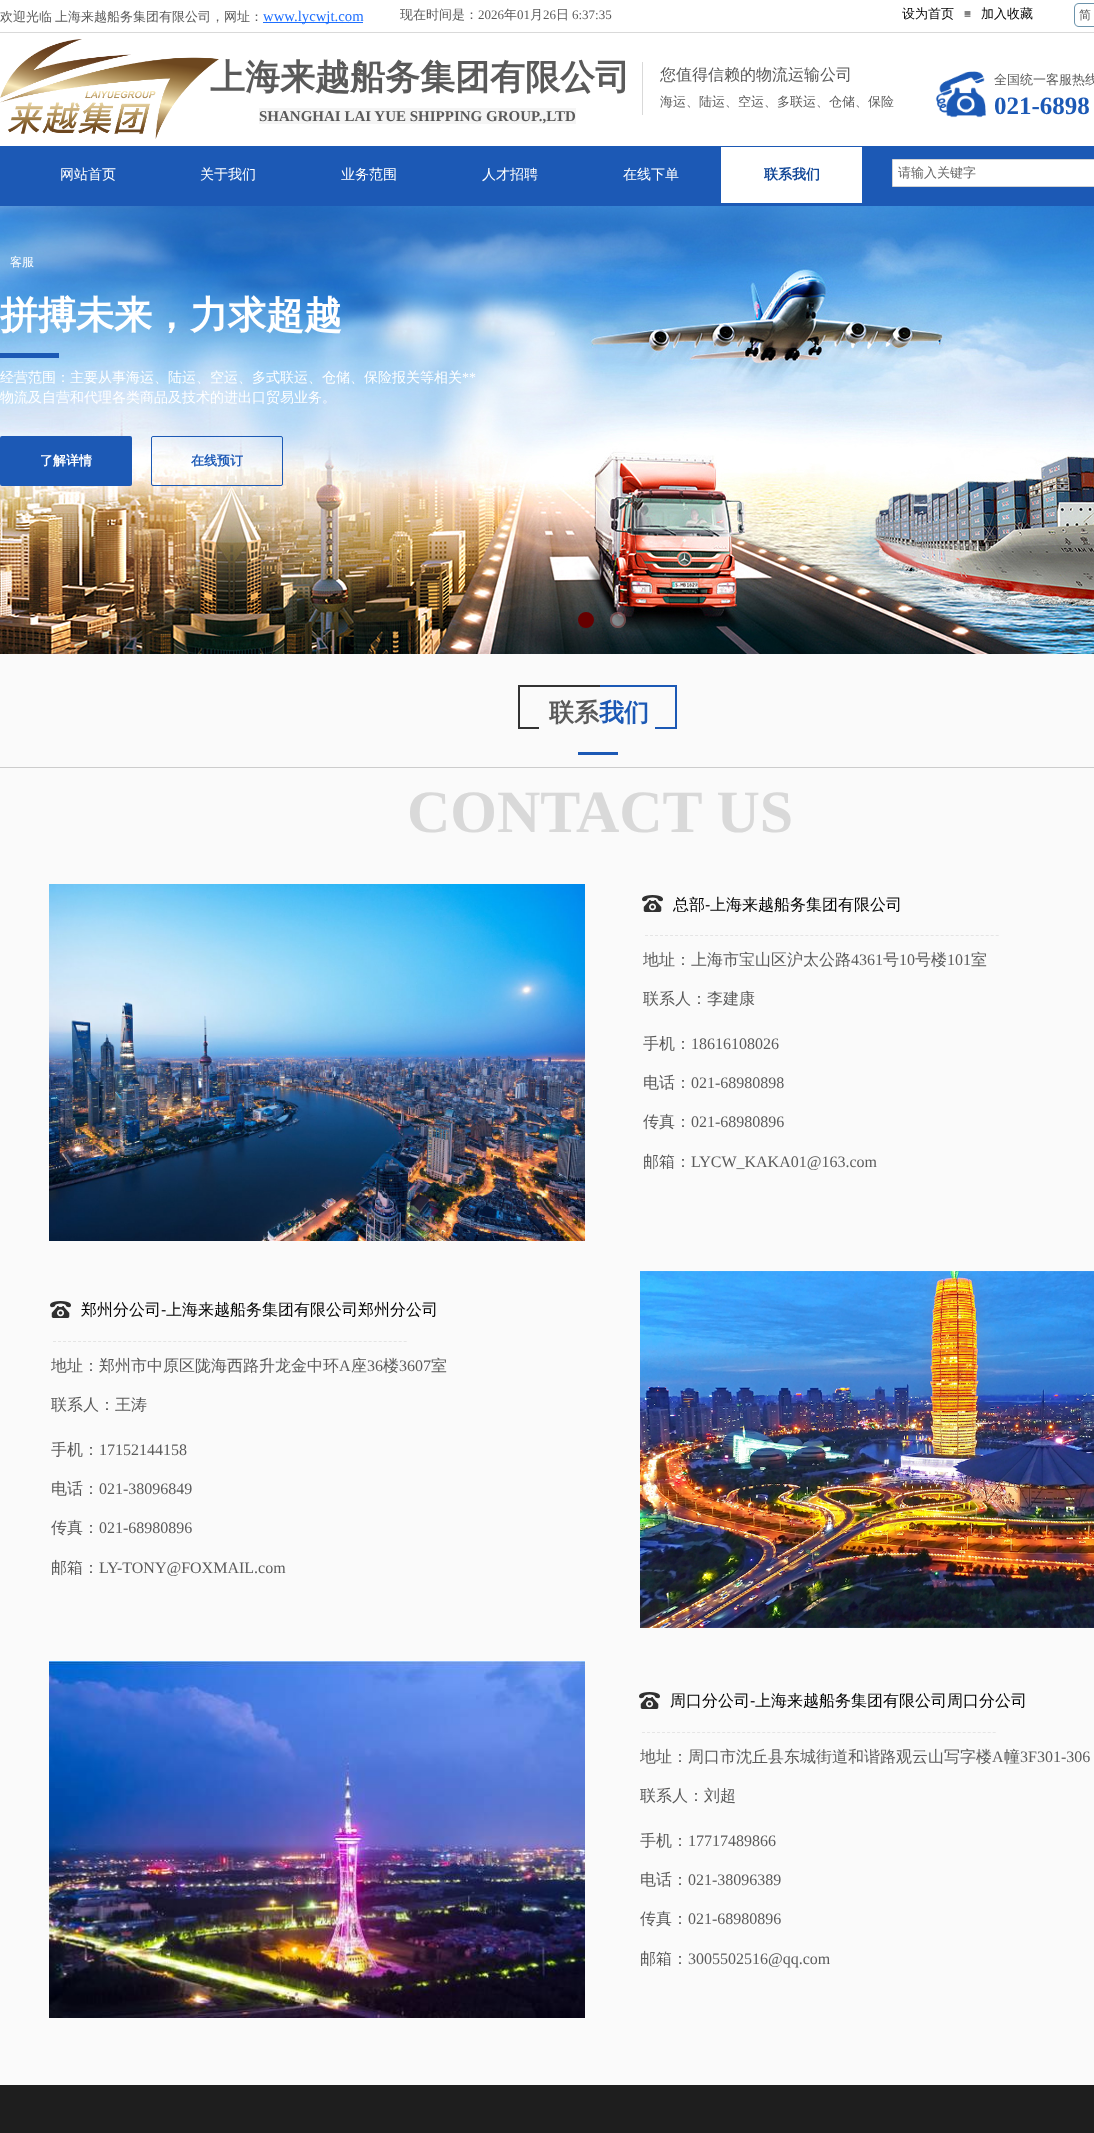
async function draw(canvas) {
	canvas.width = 1094;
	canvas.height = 2133;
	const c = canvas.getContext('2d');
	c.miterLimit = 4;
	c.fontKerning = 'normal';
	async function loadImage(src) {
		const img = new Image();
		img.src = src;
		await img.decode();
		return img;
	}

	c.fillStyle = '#fff';
	c.fillRect(0, 0, 1094, 2133);
	c.wordSpacing = '-1px';
	c.font = '500 13px WenQuanYi Zen Hei';
	c.fillStyle = '#5a5a5a';
	c.fillText('欢迎光临 上海来越船务集团有限公司，网址：', 0, 21);
	c.fillStyle = '#1e6fff';
	c.fillRect(263, 22, 100, 1);
	c.wordSpacing = '0px';
	c.font = '14.75px Liberation Serif';
	c.fillText('www.lycwjt.com', 263, 21);
	c.font = '500 13px WenQuanYi Zen Hei';
	c.fillStyle = '#5a5a5a';
	c.fillText('现在时间是：', 400, 19);
	c.font = '13px Liberation Serif';
	c.fillText('2026', 478, 19);
	c.font = '500 13px WenQuanYi Zen Hei';
	c.fillText('年', 504, 19);
	c.font = '13px Liberation Serif';
	c.fillText('01', 517, 19);
	c.font = '500 13px WenQuanYi Zen Hei';
	c.fillText('月', 530, 19);
	c.font = '13px Liberation Serif';
	c.fillText('26', 543, 19);
	c.font = '500 13px WenQuanYi Zen Hei';
	c.fillText('日', 556, 19);
	c.font = '13px Liberation Serif';
	c.fillText('6:37:35', 572, 19);
	c.font = '500 13px WenQuanYi Zen Hei';
	c.fillStyle = '#000';
	c.fillText('设为首页', 902, 18);
	c.font = '12px Liberation Sans';
	c.fillText('≡', 964, 18);
	c.font = '500 13px WenQuanYi Zen Hei';
	c.fillText('加入收藏', 981, 18);
	c.drawImage(await loadImage('img1.png'), 1074, 3, 20, 24);
	c.font = '500 12px WenQuanYi Zen Hei';
	c.fillStyle = '#5a5a5a';
	c.fillText('简', 1079, 19);
	c.fillStyle = '#d9d9d9';
	c.fillRect(0, 32, 1094, 1);
	c.font = 'bold 35px WenQuanYi Zen Hei';
	c.fillStyle = '#5a5a5a';
	c.fillText('上海来越船务集团有限公司', 210, 89);
	c.drawImage(await loadImage('img2.png'), 0, 39, 219, 100);
	c.fillStyle = '#d9d9d9';
	c.fillRect(642, 62, 1, 53);
	c.font = '500 16px WenQuanYi Zen Hei';
	c.fillStyle = '#5a5a5a';
	c.fillText('您值得信赖的物流运输公司', 660, 80);
	c.drawImage(await loadImage('img3.png'), 935, 71, 51, 47);
	c.font = '500 13px WenQuanYi Zen Hei';
	c.fillText('全国统一客服热线', 994, 84);
	c.fillText('海运、陆运、空运、多联运、仓储、保险', 660, 106);
	c.font = 'bold 25px Liberation Serif';
	c.fillStyle = '#1c59b5';
	c.fillText('021-6898', 994, 114);
	c.fillStyle = '#f5f5f5';
	c.fillRect(259, 108, 317, 16);
	c.font = 'bold 15px Liberation Serif';
	c.fillStyle = '#5a5a5a';
	c.fillText('SHANGHAI LAI YUE SHIPPING GROUP.,LTD', 259, 121);
	c.fillStyle = '#1c59b5';
	c.fillRect(0, 146, 1094, 60);
	c.font = '500 14px WenQuanYi Zen Hei';
	c.fillStyle = '#fff';
	for (const [text, x, y] of [
		['网站首页', 60, 179],
		['关于我们', 200, 179],
		['业务范围', 341, 179],
		['人才招聘', 482, 179],
		['在线下单', 623, 179],
	]) {
		c.fillText(text, x, y);
	}
	c.fillRect(721, 147, 141, 56);
	c.font = 'bold 14px WenQuanYi Zen Hei';
	c.fillStyle = '#0f4596';
	c.fillText('联系我们', 764, 179);
	c.fillStyle = '#fff';
	c.beginPath();
	c.rect(892.5, 159.5, 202, 27);
	c.fill();
	c.strokeStyle = '#d3d3d3';
	c.stroke();
	c.font = '500 13px WenQuanYi Zen Hei';
	c.fillStyle = '#666';
	c.fillText('请输入关键字', 898, 177);
	c.drawImage(await loadImage('img4.png'), 0, 206, 1094, 448);
	c.fillStyle = '#600';
	c.beginPath();
	c.arc(586, 620, 7, 0, 2 * Math.PI);
	c.fill();
	c.strokeStyle = '#600';
	c.lineWidth = 2;
	c.stroke();
	c.fillStyle = '#ffffff66';
	c.beginPath();
	c.arc(618, 620, 8, 0, 2 * Math.PI);
	c.fill();
	c.beginPath();
	c.arc(618, 620, 7, 0, 2 * Math.PI);
	c.strokeStyle = '#66000066';
	c.stroke();
	c.font = 'bold 38px WenQuanYi Zen Hei';
	c.fillStyle = '#fff';
	c.fillText('拼搏未来，力求超越', 0, 328);
	c.fillStyle = '#1c59b5';
	c.fillRect(0, 353, 59, 5);
	c.font = '500 14px WenQuanYi Zen Hei';
	c.fillStyle = '#fff';
	c.fillText('经营范围：主要从事海运、陆运、空运、多式联运、仓储、保险报关等相关', 0, 382);
	c.font = '14px Liberation Serif';
	c.fillText('**', 462, 382);
	c.font = '500 14px WenQuanYi Zen Hei';
	c.fillText('物流及自营和代理各类商品及技术的进出口贸易业务。', 0, 402);
	c.fillStyle = '#1c59b5';
	c.beginPath();
	c.roundRect(0, 436, 132, 50, 2);
	c.fill();
	c.font = 'bold 13px WenQuanYi Zen Hei';
	c.fillStyle = '#fff';
	c.fillText('了解详情', 40, 465);
	c.beginPath();
	c.roundRect(151.5, 436.5, 131, 49, 1.5);
	c.strokeStyle = '#1c59b5';
	c.lineWidth = 1;
	c.stroke();
	c.fillStyle = '#1c59b5';
	c.fillText('在线预订', 191, 465);
	c.fillStyle = '#fafafa';
	c.fillRect(0, 654, 1094, 1431);
	c.drawImage(await loadImage('img5.png'), 518, 685, 159, 70);
	c.font = 'bold 25px WenQuanYi Zen Hei';
	c.fillStyle = '#5a5a5a';
	c.fillText('联系', 549, 721);
	c.fillStyle = '#1c59b5';
	c.fillText('我们', 599, 721);
	c.fillStyle = '#ccc';
	c.fillRect(0, 767, 1094, 1);
	c.font = 'bold 60px Liberation Serif';
	c.fillStyle = '#d9d9d9';
	c.fillText('CONTACT US', 407, 832);
	c.drawImage(await loadImage('img6.png'), 49, 884, 536, 357);
	c.drawImage(await loadImage('img7.png'), 642, 895, 21, 17);
	c.font = '500 16px WenQuanYi Zen Hei';
	c.fillStyle = '#000';
	c.fillText('总部', 673, 910);
	c.font = '16px Liberation Sans';
	c.fillText('-', 705, 910);
	c.font = '500 16px WenQuanYi Zen Hei';
	c.fillText('上海来越船务集团有限公司', 710, 910);
	c.beginPath();
	c.moveTo(645, 935.5);
	c.lineTo(999, 935.5);
	c.strokeStyle = '#e5e5e5';
	c.setLineDash([3, 2.01]);
	c.stroke();
	c.fillStyle = '#5a5a5a';
	c.fillText('地址：上海市宝山区沪太公路', 643, 965);
	c.font = '16px Liberation Serif';
	c.fillText('4361', 851, 965);
	c.font = '500 16px WenQuanYi Zen Hei';
	c.fillText('号', 883, 965);
	c.font = '16px Liberation Serif';
	c.fillText('10', 899, 965);
	c.font = '500 16px WenQuanYi Zen Hei';
	c.fillText('号楼', 915, 965);
	c.font = '16px Liberation Serif';
	c.fillText('101', 947, 965);
	c.font = '500 16px WenQuanYi Zen Hei';
	for (const [text, x, y] of [
		['室', 971, 965],
		['联系人：李建康', 643, 1004],
		['手机：', 643, 1049],
	]) {
		c.fillText(text, x, y);
	}
	c.font = '16px Liberation Serif';
	c.fillText('18616108026', 691, 1049);
	c.font = '500 16px WenQuanYi Zen Hei';
	c.fillText('电话：', 643, 1088);
	c.font = '16px Liberation Serif';
	c.fillText('021-68980898', 691, 1088);
	c.font = '500 16px WenQuanYi Zen Hei';
	c.fillText('传真：', 643, 1127);
	c.font = '16px Liberation Serif';
	c.fillText('021-68980896', 691, 1127);
	c.font = '500 16px WenQuanYi Zen Hei';
	c.fillText('邮箱：', 643, 1167);
	c.font = '16px Liberation Serif';
	c.fillText('LYCW_KAKA01@163.com', 691, 1167);
	c.drawImage(await loadImage('img7.png'), 50, 1301, 21, 17);
	c.font = '500 16px WenQuanYi Zen Hei';
	c.fillStyle = '#000';
	c.fillText('郑州分公司', 81, 1315);
	c.font = '16px Liberation Sans';
	c.fillText('-', 161, 1315);
	c.font = '500 16px WenQuanYi Zen Hei';
	c.fillText('上海来越船务集团有限公司郑州分公司', 166, 1315);
	c.drawImage(await loadImage('img8.png'), 640, 1271, 454, 357);
	c.beginPath();
	c.moveTo(53, 1341.5);
	c.lineTo(407, 1341.5);
	c.stroke();
	c.fillStyle = '#5a5a5a';
	c.fillText('地址：郑州市中原区陇海西路升龙金中环', 51, 1371);
	c.font = '16px Liberation Serif';
	c.fillText('A', 339, 1371);
	c.font = '500 16px WenQuanYi Zen Hei';
	c.fillText('座', 351, 1371);
	c.font = '16px Liberation Serif';
	c.fillText('36', 367, 1371);
	c.font = '500 16px WenQuanYi Zen Hei';
	c.fillText('楼', 383, 1371);
	c.font = '16px Liberation Serif';
	c.fillText('3607', 399, 1371);
	c.font = '500 16px WenQuanYi Zen Hei';
	for (const [text, x, y] of [
		['室', 431, 1371],
		['联系人：王涛', 51, 1410],
		['手机：', 51, 1455],
	]) {
		c.fillText(text, x, y);
	}
	c.font = '16px Liberation Serif';
	c.fillText('17152144158', 99, 1455);
	c.font = '500 16px WenQuanYi Zen Hei';
	c.fillText('电话：', 51, 1494);
	c.font = '16px Liberation Serif';
	c.fillText('021-38096849', 99, 1494);
	c.font = '500 16px WenQuanYi Zen Hei';
	c.fillText('传真：', 51, 1533);
	c.font = '16px Liberation Serif';
	c.fillText('021-68980896', 99, 1533);
	c.font = '500 16px WenQuanYi Zen Hei';
	c.fillText('邮箱：', 51, 1573);
	c.font = '16px Liberation Serif';
	c.fillText('LY-TONY@FOXMAIL.com', 99, 1573);
	c.drawImage(await loadImage('img9.png'), 49, 1661, 536, 357);
	c.drawImage(await loadImage('img7.png'), 639, 1692, 21, 17);
	c.font = '500 16px WenQuanYi Zen Hei';
	c.fillStyle = '#000';
	c.fillText('周口分公司', 670, 1706);
	c.font = '16px Liberation Sans';
	c.fillText('-', 750, 1706);
	c.font = '500 16px WenQuanYi Zen Hei';
	c.fillText('上海来越船务集团有限公司周口分公司', 755, 1706);
	c.beginPath();
	c.moveTo(642, 1732.5);
	c.lineTo(996, 1732.5);
	c.stroke();
	c.fillStyle = '#5a5a5a';
	c.fillText('地址：周口市沈丘县东城街道和谐路观云山写字楼', 640, 1762);
	c.font = '16px Liberation Serif';
	c.fillText('A', 992, 1762);
	c.font = '500 16px WenQuanYi Zen Hei';
	c.fillText('幢', 1004, 1762);
	c.font = '16px Liberation Serif';
	c.fillText('3F301-306', 1020, 1762);
	c.font = '500 16px WenQuanYi Zen Hei';
	c.fillText('联系人：刘超', 640, 1801);
	c.fillText('手机：', 640, 1846);
	c.font = '16px Liberation Serif';
	c.fillText('17717489866', 688, 1846);
	c.font = '500 16px WenQuanYi Zen Hei';
	c.fillText('电话：', 640, 1885);
	c.font = '16px Liberation Serif';
	c.fillText('021-38096389', 688, 1885);
	c.font = '500 16px WenQuanYi Zen Hei';
	c.fillText('传真：', 640, 1924);
	c.font = '16px Liberation Serif';
	c.fillText('021-68980896', 688, 1924);
	c.font = '500 16px WenQuanYi Zen Hei';
	c.fillText('邮箱：', 640, 1964);
	c.font = '16px Liberation Serif';
	c.fillText('3005502516@qq.com', 688, 1964);
	c.fillStyle = '#1e1e1e';
	c.fillRect(0, 2085, 1094, 48);
	c.font = '500 12px WenQuanYi Zen Hei';
	c.fillStyle = '#fff';
	c.fillText('客服', 10, 266);
}

draw(document.querySelector('canvas'));
